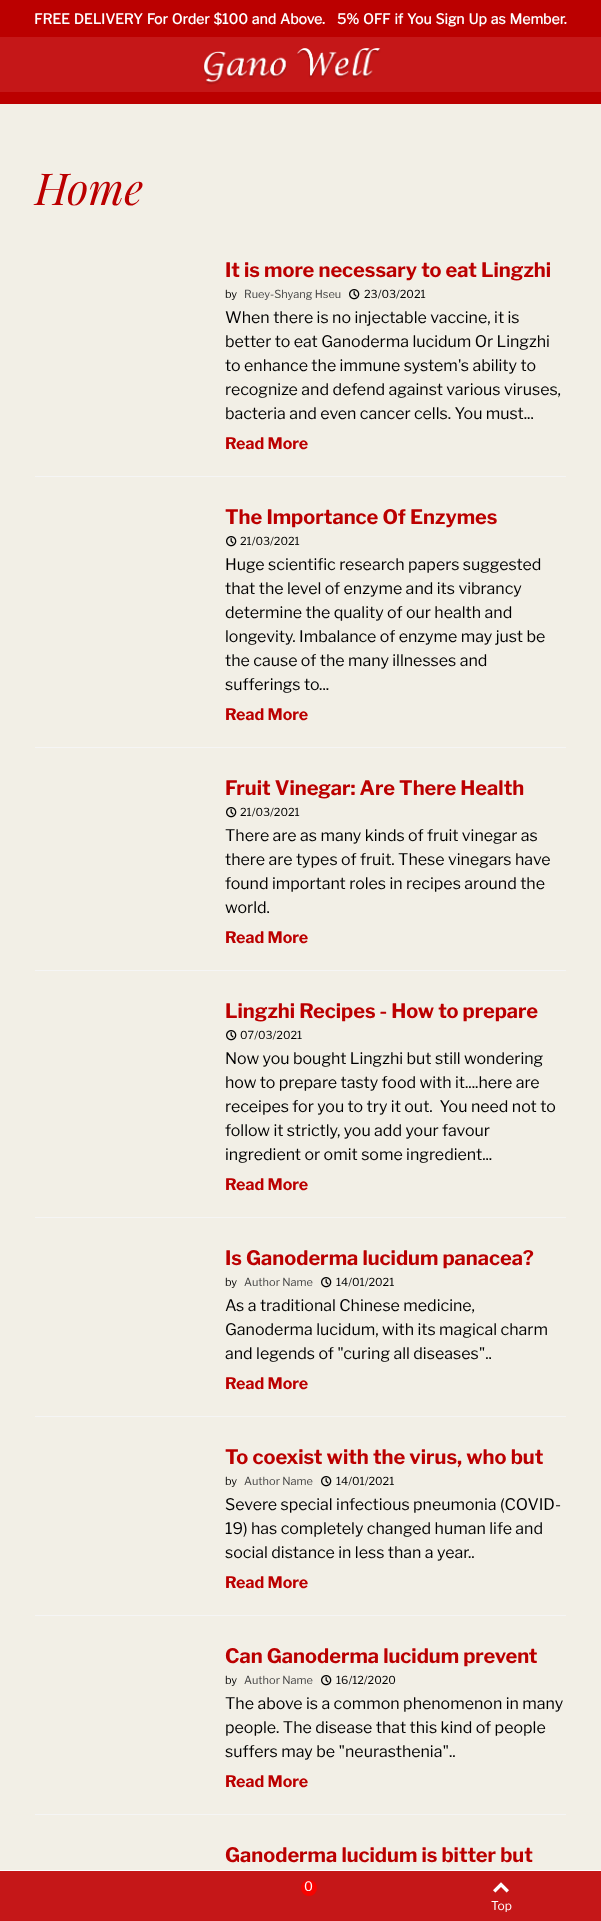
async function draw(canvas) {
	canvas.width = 601;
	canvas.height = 1921;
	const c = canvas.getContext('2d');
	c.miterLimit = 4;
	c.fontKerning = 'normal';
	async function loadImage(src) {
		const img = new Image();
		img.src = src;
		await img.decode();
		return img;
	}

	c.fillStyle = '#b00';
	c.fillRect(0, 0, 601, 1921);
	c.wordSpacing = '1px';
	c.font = 'bold 14px "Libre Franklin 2"';
	c.fillStyle = '#fff';
	c.fillText('FREE DELIVERY For Order $100 and Above.   5% OFF if You Sign Up as Member.', 34, 24);
	c.fillStyle = '#c51718';
	c.fillRect(0, 37, 601, 55);
	c.drawImage(await loadImage('img1.png'), 203, 48, 178, 37);
	c.fillStyle = '#f2efe6';
	c.fillRect(0, 104, 601, 1766);
	c.wordSpacing = '0px';
	c.font = 'italic 44px Playfair Display';
	c.fillStyle = '#b00';
	c.fillText('Home', 35, 205);
	c.fillStyle = '#f5f5f5';
	c.fillRect(35, 476, 531, 1);
	c.font = 'bold 20px Libre Franklin';
	c.fillStyle = '#b00';
	c.fillText('It is more necessary to eat Lingzhi', 225, 277);
	c.font = '11px Libre Franklin';
	c.fillStyle = '#000';
	c.fillText('by', 225, 298);
	c.fillStyle = '#444';
	c.fillText('Ruey-Shyang Hseu', 244, 298);
	c.drawImage(await loadImage('img2.png'), 349, 289, 11, 11);
	c.fillStyle = '#000';
	c.fillText('23/03/2021', 364, 298);
	c.font = '16px Libre Franklin';
	for (const [text, x, y] of [
		['When there is no injectable vaccine, it is', 225, 323],
		['better to eat Ganoderma lucidum Or Lingzhi', 225, 347],
		['to enhance the immune system\'s ability to', 225, 371],
		['recognize and defend against various viruses,', 225, 395],
		['bacteria and even cancer cells. You must...', 225, 419],
	]) {
		c.fillText(text, x, y);
	}
	c.font = 'bold 16px Libre Franklin';
	c.fillStyle = '#b00';
	c.fillText('Read More', 225, 449);
	c.fillStyle = '#f5f5f5';
	c.fillRect(35, 747, 531, 1);
	c.font = 'bold 20px Libre Franklin';
	c.fillStyle = '#b00';
	c.fillText('The Importance Of Enzymes', 225, 524);
	c.drawImage(await loadImage('img2.png'), 226, 536, 11, 11);
	c.font = '11px Libre Franklin';
	c.fillStyle = '#000';
	c.fillText('21/03/2021', 240, 545);
	c.font = '16px Libre Franklin';
	for (const [text, x, y] of [
		['Huge scientific research papers suggested', 225, 570],
		['that the level of enzyme and its vibrancy', 225, 594],
		['determine the quality of our health and', 225, 618],
		['longevity. Imbalance of enzyme may just be', 225, 642],
		['the cause of the many illnesses and', 225, 666],
		['sufferings to...', 225, 690],
	]) {
		c.fillText(text, x, y);
	}
	c.font = 'bold 16px Libre Franklin';
	c.fillStyle = '#b00';
	c.fillText('Read More', 225, 720);
	c.fillStyle = '#f5f5f5';
	c.fillRect(35, 970, 531, 1);
	c.font = 'bold 20px Libre Franklin';
	c.fillStyle = '#b00';
	c.fillText('Fruit Vinegar: Are There Health', 225, 795);
	c.drawImage(await loadImage('img2.png'), 226, 807, 11, 11);
	c.font = '11px Libre Franklin';
	c.fillStyle = '#000';
	c.fillText('21/03/2021', 240, 816);
	c.font = '16px Libre Franklin';
	for (const [text, x, y] of [
		['There are as many kinds of fruit vinegar as', 225, 841],
		['there are types of fruit. These vinegars have', 225, 865],
		['found important roles in recipes around the', 225, 889],
		['world.', 225, 913],
	]) {
		c.fillText(text, x, y);
	}
	c.font = 'bold 16px Libre Franklin';
	c.fillStyle = '#b00';
	c.fillText('Read More', 225, 943);
	c.fillStyle = '#f5f5f5';
	c.fillRect(35, 1217, 531, 1);
	c.font = 'bold 20px Libre Franklin';
	c.fillStyle = '#b00';
	c.fillText('Lingzhi Recipes - How to prepare', 225, 1018);
	c.drawImage(await loadImage('img2.png'), 226, 1030, 11, 11);
	c.font = '11px Libre Franklin';
	c.fillStyle = '#000';
	c.fillText('07/03/2021', 240, 1039);
	c.font = '16px Libre Franklin';
	for (const [text, x, y] of [
		['Now you bought Lingzhi but still wondering', 225, 1064],
		['how to prepare tasty food with it....here are', 225, 1088],
		['receipes for you to try it out.  You need not to', 225, 1112],
		['follow it strictly, you add your favour', 225, 1136],
		['ingredient or omit some ingredient...', 225, 1160],
	]) {
		c.fillText(text, x, y);
	}
	c.font = 'bold 16px Libre Franklin';
	c.fillStyle = '#b00';
	c.fillText('Read More', 225, 1190);
	c.fillStyle = '#f5f5f5';
	c.fillRect(35, 1416, 531, 1);
	c.font = 'bold 20px Libre Franklin';
	c.fillStyle = '#b00';
	c.fillText('Is Ganoderma lucidum panacea?', 225, 1265);
	c.font = '11px Libre Franklin';
	c.fillStyle = '#000';
	c.fillText('by', 225, 1286);
	c.fillStyle = '#444';
	c.fillText('Author Name', 244, 1286);
	c.drawImage(await loadImage('img2.png'), 321, 1277, 11, 11);
	c.fillStyle = '#000';
	c.fillText('14/01/2021', 336, 1286);
	c.font = '16px Libre Franklin';
	for (const [text, x, y] of [
		['As a traditional Chinese medicine,', 225, 1311],
		['Ganoderma lucidum, with its magical charm', 225, 1335],
		['and legends of "curing all diseases"..', 225, 1359],
	]) {
		c.fillText(text, x, y);
	}
	c.font = 'bold 16px Libre Franklin';
	c.fillStyle = '#b00';
	c.fillText('Read More', 225, 1389);
	c.fillStyle = '#f5f5f5';
	c.fillRect(35, 1615, 531, 1);
	c.font = 'bold 20px Libre Franklin';
	c.fillStyle = '#b00';
	c.fillText('To coexist with the virus, who but', 225, 1464);
	c.font = '11px Libre Franklin';
	c.fillStyle = '#000';
	c.fillText('by', 225, 1485);
	c.fillStyle = '#444';
	c.fillText('Author Name', 244, 1485);
	c.drawImage(await loadImage('img2.png'), 321, 1476, 11, 11);
	c.fillStyle = '#000';
	c.fillText('14/01/2021', 336, 1485);
	c.font = '16px Libre Franklin';
	for (const [text, x, y] of [
		['Severe special infectious pneumonia (COVID-', 225, 1510],
		['19) has completely changed human life and', 225, 1534],
		['social distance in less than a year..', 225, 1558],
	]) {
		c.fillText(text, x, y);
	}
	c.font = 'bold 16px Libre Franklin';
	c.fillStyle = '#b00';
	c.fillText('Read More', 225, 1588);
	c.fillStyle = '#f5f5f5';
	c.fillRect(35, 1814, 531, 1);
	c.font = 'bold 20px Libre Franklin';
	c.fillStyle = '#b00';
	c.fillText('Can Ganoderma lucidum prevent', 225, 1663);
	c.font = '11px Libre Franklin';
	c.fillStyle = '#000';
	c.fillText('by', 225, 1684);
	c.fillStyle = '#444';
	c.fillText('Author Name', 244, 1684);
	c.drawImage(await loadImage('img2.png'), 321, 1675, 11, 11);
	c.fillStyle = '#000';
	c.fillText('16/12/2020', 336, 1684);
	c.font = '16px Libre Franklin';
	for (const [text, x, y] of [
		['The above is a common phenomenon in many', 225, 1709],
		['people. The disease that this kind of people', 225, 1733],
		['suffers may be "neurasthenia"..', 225, 1757],
	]) {
		c.fillText(text, x, y);
	}
	c.font = 'bold 16px Libre Franklin';
	c.fillStyle = '#b00';
	c.fillText('Read More', 225, 1787);
	c.font = 'bold 20px Libre Franklin';
	c.fillText('Ganoderma lucidum is bitter but', 225, 1862);
	c.fillStyle = '#fff';
	c.fillRect(0, 1870, 601, 1);
	c.fillStyle = '#c51718';
	c.fillRect(0, 1871, 601, 50);
	c.fillStyle = '#f70300';
	c.beginPath();
	c.arc(309, 1888, 8, 0, 2 * Math.PI);
	c.fill();
	c.font = '13px Libre Franklin';
	c.fillStyle = '#fff';
	c.fillText('0', 304, 1891);
	c.drawImage(await loadImage('img3.png'), 493, 1882, 16, 11);
	c.font = '12px Libre Franklin';
	c.fillText('Top', 491, 1910);
}

draw(document.querySelector('canvas'));
